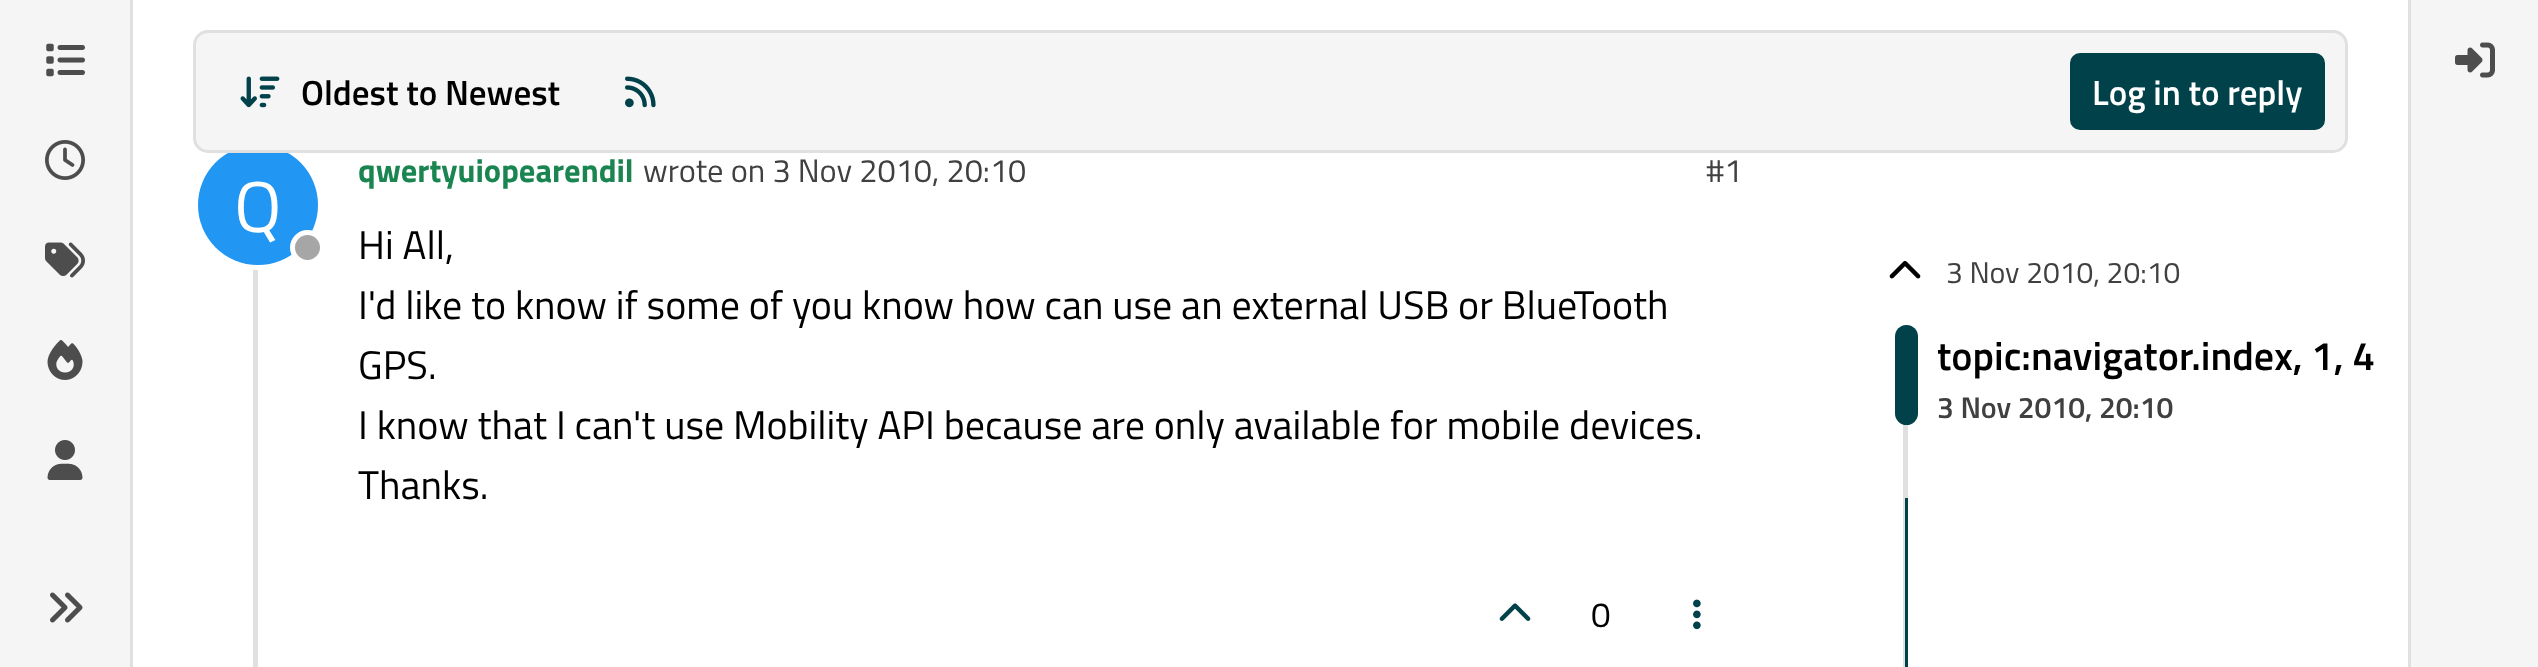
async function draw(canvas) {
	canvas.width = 2538;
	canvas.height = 667;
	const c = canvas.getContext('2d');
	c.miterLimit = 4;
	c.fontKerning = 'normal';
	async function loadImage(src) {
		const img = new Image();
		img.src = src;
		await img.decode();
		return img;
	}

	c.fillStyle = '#fff';
	c.fillRect(0, 0, 2538, 667);
	c.fillStyle = '#f5f5f5';
	c.fillRect(0, 0, 130, 667);
	c.fillStyle = '#e0e0e0';
	c.fillRect(130, 0, 3, 667);
	c.drawImage(await loadImage('img1.png'), 46, 43, 39, 34);
	c.drawImage(await loadImage('img2.png'), 45, 140, 40, 40);
	c.drawImage(await loadImage('img3.png'), 45, 242, 40, 36);
	c.drawImage(await loadImage('img4.png'), 47, 340, 36, 40);
	c.drawImage(await loadImage('img5.png'), 47, 440, 36, 40);
	c.drawImage(await loadImage('img6.png'), 50, 592, 33, 31);
	c.fillRect(253, 264, 5, 403);
	c.beginPath();
	c.arc(258, 205, 62.5, 0, 2 * Math.PI);
	c.strokeStyle = '#fff';
	c.lineWidth = 5;
	c.stroke();
	c.fillStyle = '#2196f3';
	c.beginPath();
	c.arc(258, 205, 60, 0, 2 * Math.PI);
	c.fill();
	c.fillStyle = '#f5f5f5';
	c.beginPath();
	c.roundRect(194.5, 31.5, 2152, 120, 13.5);
	c.fill();
	c.strokeStyle = '#e0e0e0';
	c.lineWidth = 3;
	c.stroke();
	c.drawImage(await loadImage('img7.png'), 240, 76, 40, 32);
	c.font = '600 35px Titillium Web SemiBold';
	c.fillStyle = '#000';
	c.fillText('Oldest to Newest', 301, 105);
	c.drawImage(await loadImage('img8.png'), 625, 76, 31, 32);
	c.fillStyle = '#00414a';
	c.beginPath();
	c.roundRect(2071.5, 54.5, 252, 74, 8.5);
	c.fill();
	c.strokeStyle = '#00414a';
	c.stroke();
	c.fillStyle = '#fff';
	c.fillText('Log in to reply', 2092, 105);
	c.font = '72px Titillium Web';
	c.fillText('Q', 234, 232);
	c.fillStyle = '#a6a6a6';
	c.beginPath();
	c.arc(307.5, 247.5, 15, 0, 2 * Math.PI);
	c.fill();
	c.strokeStyle = '#fff';
	c.lineWidth = 5;
	c.stroke();
	c.font = 'bold 32.5px Titillium Web';
	c.fillStyle = '#1a8550';
	c.fillText('qwertyuiopearendil', 358, 182);
	c.font = '32.5px Titillium Web';
	c.fillStyle = '#404040';
	c.fillText('wrote on 3 Nov 2010, 20:10', 643, 182);
	c.fillText('#1', 1706, 182);
	c.font = '40px Titillium Web';
	c.fillStyle = '#000';
	for (const [text, x, y] of [
		['Hi All,', 358, 259],
		['I\'d like to know if some of you know how can use an external USB or BlueTooth', 358, 319],
		['GPS.', 358, 379],
		['I know that I can\'t use Mobility API because are only available for mobile devices.', 358, 439],
		['Thanks.', 358, 499],
	]) {
		c.fillText(text, x, y);
	}
	c.drawImage(await loadImage('img9.png'), 1499, 603, 32, 18);
	c.font = '35px Titillium Web';
	c.fillText('0', 1591, 627);
	c.drawImage(await loadImage('img10.png'), 1693, 599, 8, 31);
	c.drawImage(await loadImage('img11.png'), 1889, 261, 32, 18);
	c.font = '30px Titillium Web';
	c.fillStyle = '#404040';
	c.fillText('3 Nov 2010, 20:10', 1946, 283);
	c.fillStyle = '#e0e0e0';
	c.fillRect(1903, 325, 5, 342);
	c.fillStyle = '#00414a';
	c.beginPath();
	c.roundRect(1895, 325, 23, 100, 11.5);
	c.fill();
	c.font = '600 40px Titillium Web SemiBold';
	c.fillStyle = '#000';
	c.fillText('topic:navigator.index, 1, 4', 1937, 370);
	c.font = '600 30px Titillium Web SemiBold';
	c.fillStyle = '#404040';
	c.fillText('3 Nov 2010, 20:10', 1937, 418);
	for (const [x, y, w, h, color] of [
		[1905, 498, 3, 169, '#00414a'],
		[2411, 0, 127, 667, '#f5f5f5'],
		[2408, 0, 3, 667, '#e0e0e0'],
	]) {
		c.fillStyle = color;
		c.fillRect(x, y, w, h);
	}
	c.drawImage(await loadImage('img12.png'), 2455, 42, 40, 36);
}

draw(document.querySelector('canvas'));
